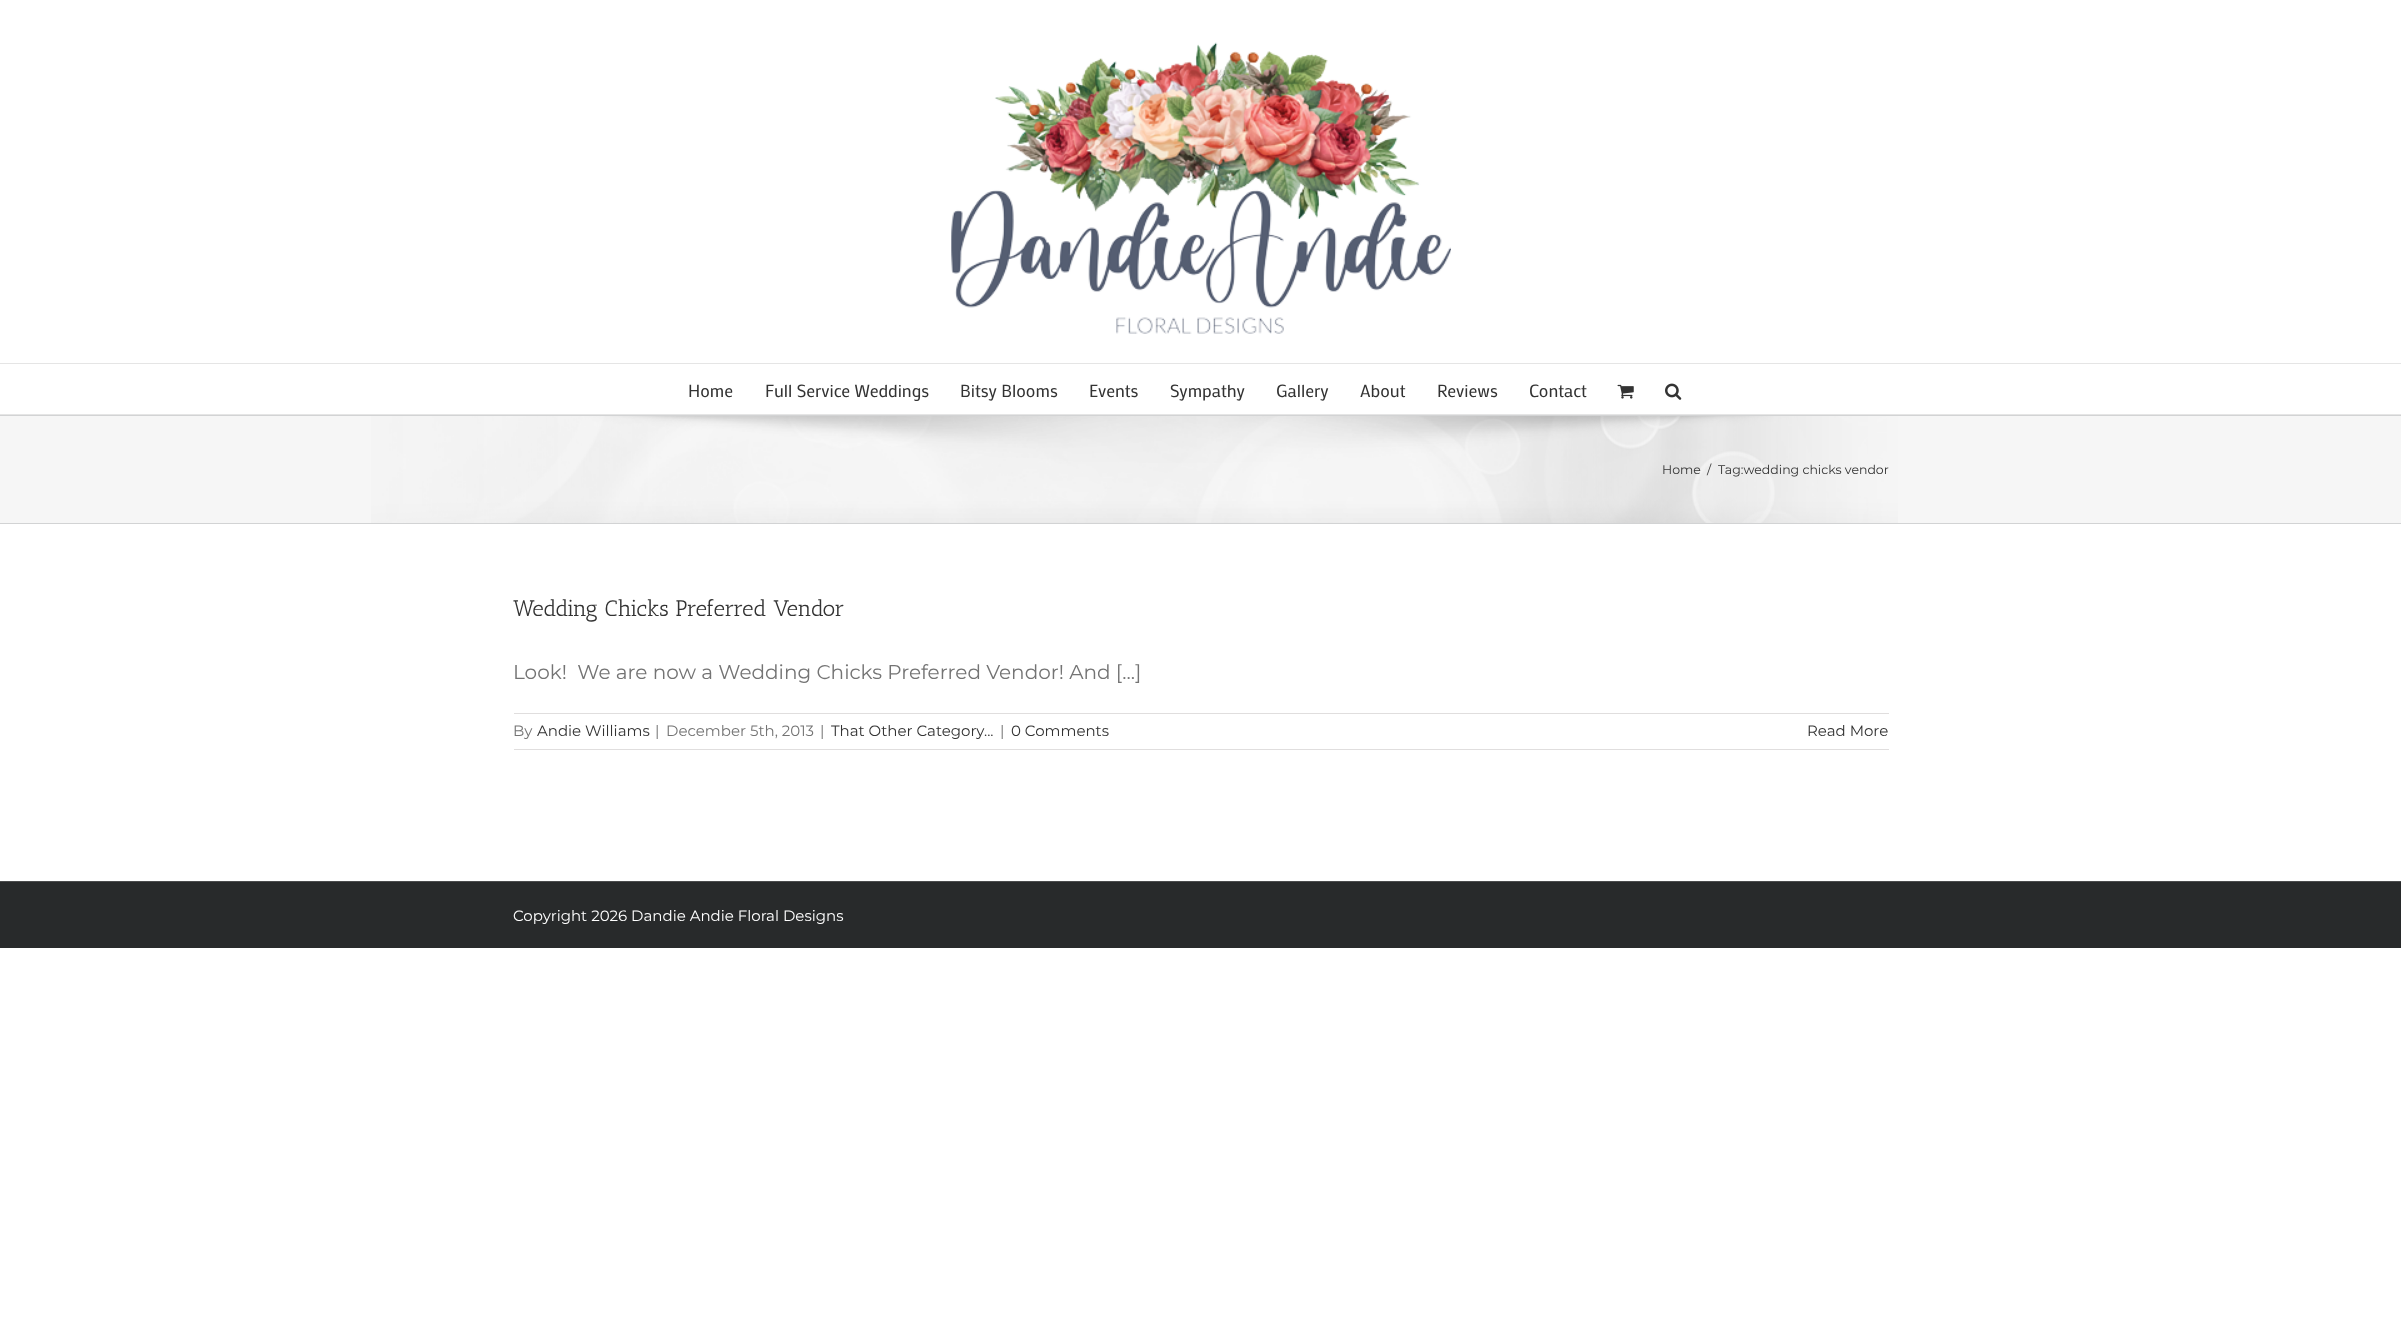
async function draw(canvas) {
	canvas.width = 2401;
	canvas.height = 1330;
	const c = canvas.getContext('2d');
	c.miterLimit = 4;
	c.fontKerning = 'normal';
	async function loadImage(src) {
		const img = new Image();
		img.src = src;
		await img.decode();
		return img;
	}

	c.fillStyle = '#fff';
	c.fillRect(0, 0, 2401, 1330);
	c.fillStyle = '#e5e5e5';
	c.fillRect(0, 363, 2401, 1);
	c.drawImage(await loadImage('img1.png'), 951, 42, 500, 292);
	c.fillRect(0, 414, 2401, 1);
	c.font = '17.5px Mako';
	c.fillStyle = '#333';
	for (const [text, x, y] of [
		['Home', 688, 397],
		['Full Service Weddings', 765, 397],
		['Bitsy Blooms', 960, 397],
		['Events', 1089, 397],
		['Sympathy', 1170, 397],
		['Gallery', 1276, 397],
		['About', 1360, 397],
		['Reviews', 1437, 397],
		['Contact', 1529, 397],
	]) {
		c.fillText(text, x, y);
	}
	c.drawImage(await loadImage('img2.png'), 1617, 384, 17, 15);
	c.drawImage(await loadImage('img3.png'), 1665, 383, 17, 17);
	c.fillStyle = '#f6f6f6';
	c.fillRect(0, 416, 2401, 107);
	c.drawImage(await loadImage('img4.png'), 371, 416, 1527, 107);
	c.fillStyle = '#d2d3d4';
	c.fillRect(0, 415, 2401, 1);
	c.fillRect(0, 523, 2401, 1);
	c.font = '12.5px Montserrat';
	c.fillStyle = '#333';
	for (const [text, x, y] of [
		['Home', 1662, 474],
		['/', 1707, 474],
		['Tag:wedding chicks vendor', 1718, 474],
	]) {
		c.fillText(text, x, y);
	}
	c.font = '22.5px Antic Slab';
	c.fillText('Wedding Chicks Preferred Vendor', 513, 616);
	c.font = '20px Montserrat';
	c.fillStyle = '#747474';
	c.fillText('Look!  We are now a Wedding Chicks Preferred Vendor! And [...]', 513, 679);
	c.fillStyle = '#e0dede';
	c.fillRect(514, 713, 1375, 1);
	c.fillRect(514, 749, 1375, 1);
	c.font = '15px Montserrat';
	c.fillStyle = '#747474';
	c.fillText('By', 513, 736);
	c.fillStyle = '#333';
	c.fillText('Andie Williams', 537, 736);
	c.fillStyle = '#747474';
	for (const [text, x, y] of [
		['|', 655, 736],
		['December 5th, 2013', 666, 736],
		['|', 820, 736],
	]) {
		c.fillText(text, x, y);
	}
	c.fillStyle = '#333';
	c.fillText('That Other Category...', 831, 736);
	c.fillStyle = '#747474';
	c.fillText('|', 1000, 736);
	c.fillStyle = '#333';
	c.fillText('0 Comments', 1011, 736);
	c.fillText('Read More', 1807, 736);
	c.fillStyle = '#282a2b';
	c.fillRect(0, 882, 2401, 66);
	c.fillStyle = '#4b4c4d';
	c.fillRect(0, 881, 2401, 1);
	c.fillStyle = '#fff';
	c.fillText('Copyright 2026 Dandie Andie Floral Designs', 513, 921);
}

draw(document.querySelector('canvas'));
